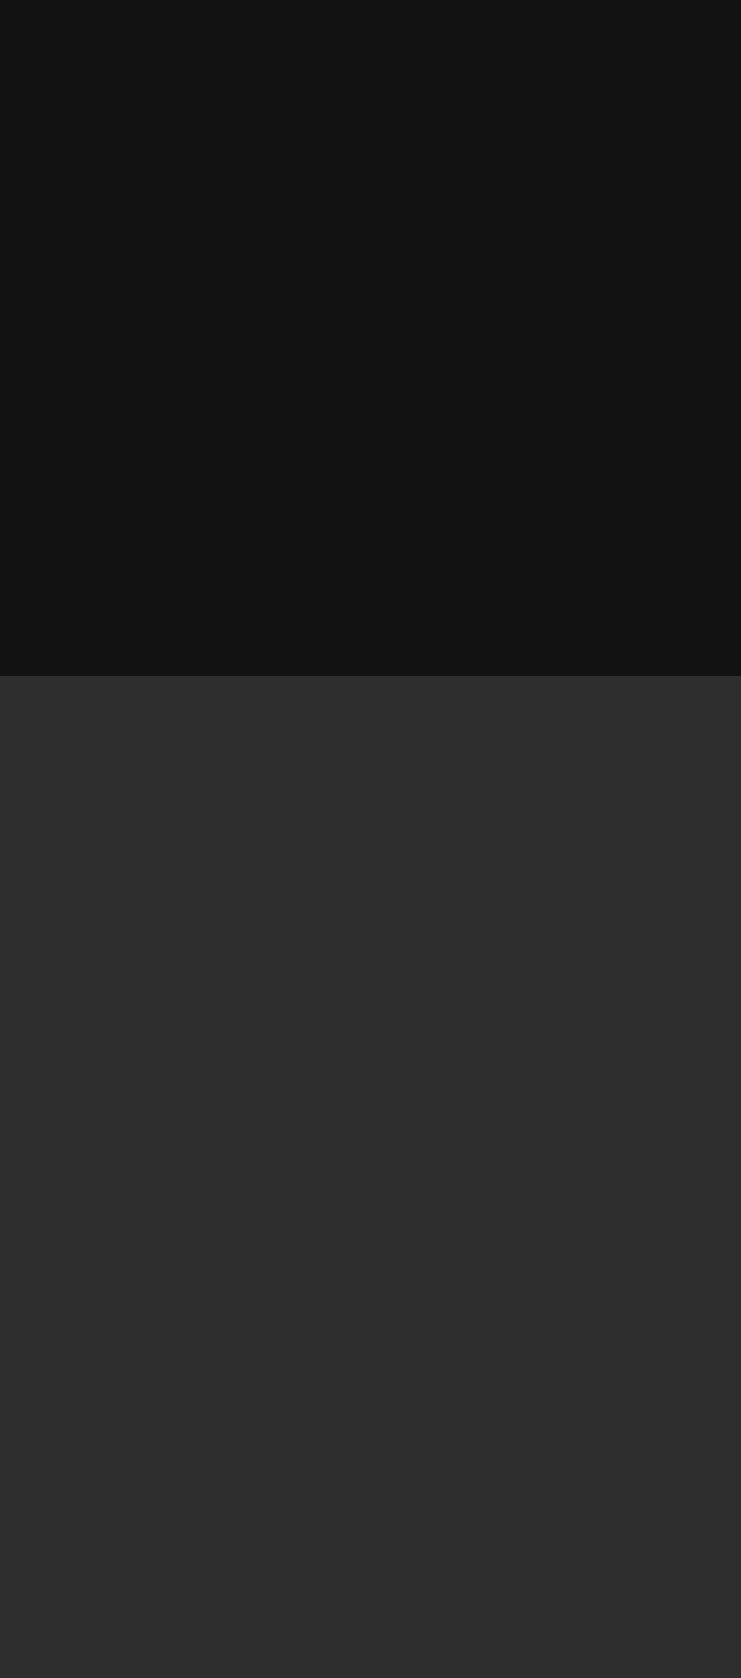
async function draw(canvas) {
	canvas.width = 741;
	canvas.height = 1678;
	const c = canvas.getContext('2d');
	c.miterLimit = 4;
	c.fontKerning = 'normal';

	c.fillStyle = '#2f2e2e';
	c.fillRect(0, 0, 741, 1678);
	c.fillStyle = '#131212';
	c.fillRect(0, 0, 741, 676);
}

draw(document.querySelector('canvas'));
